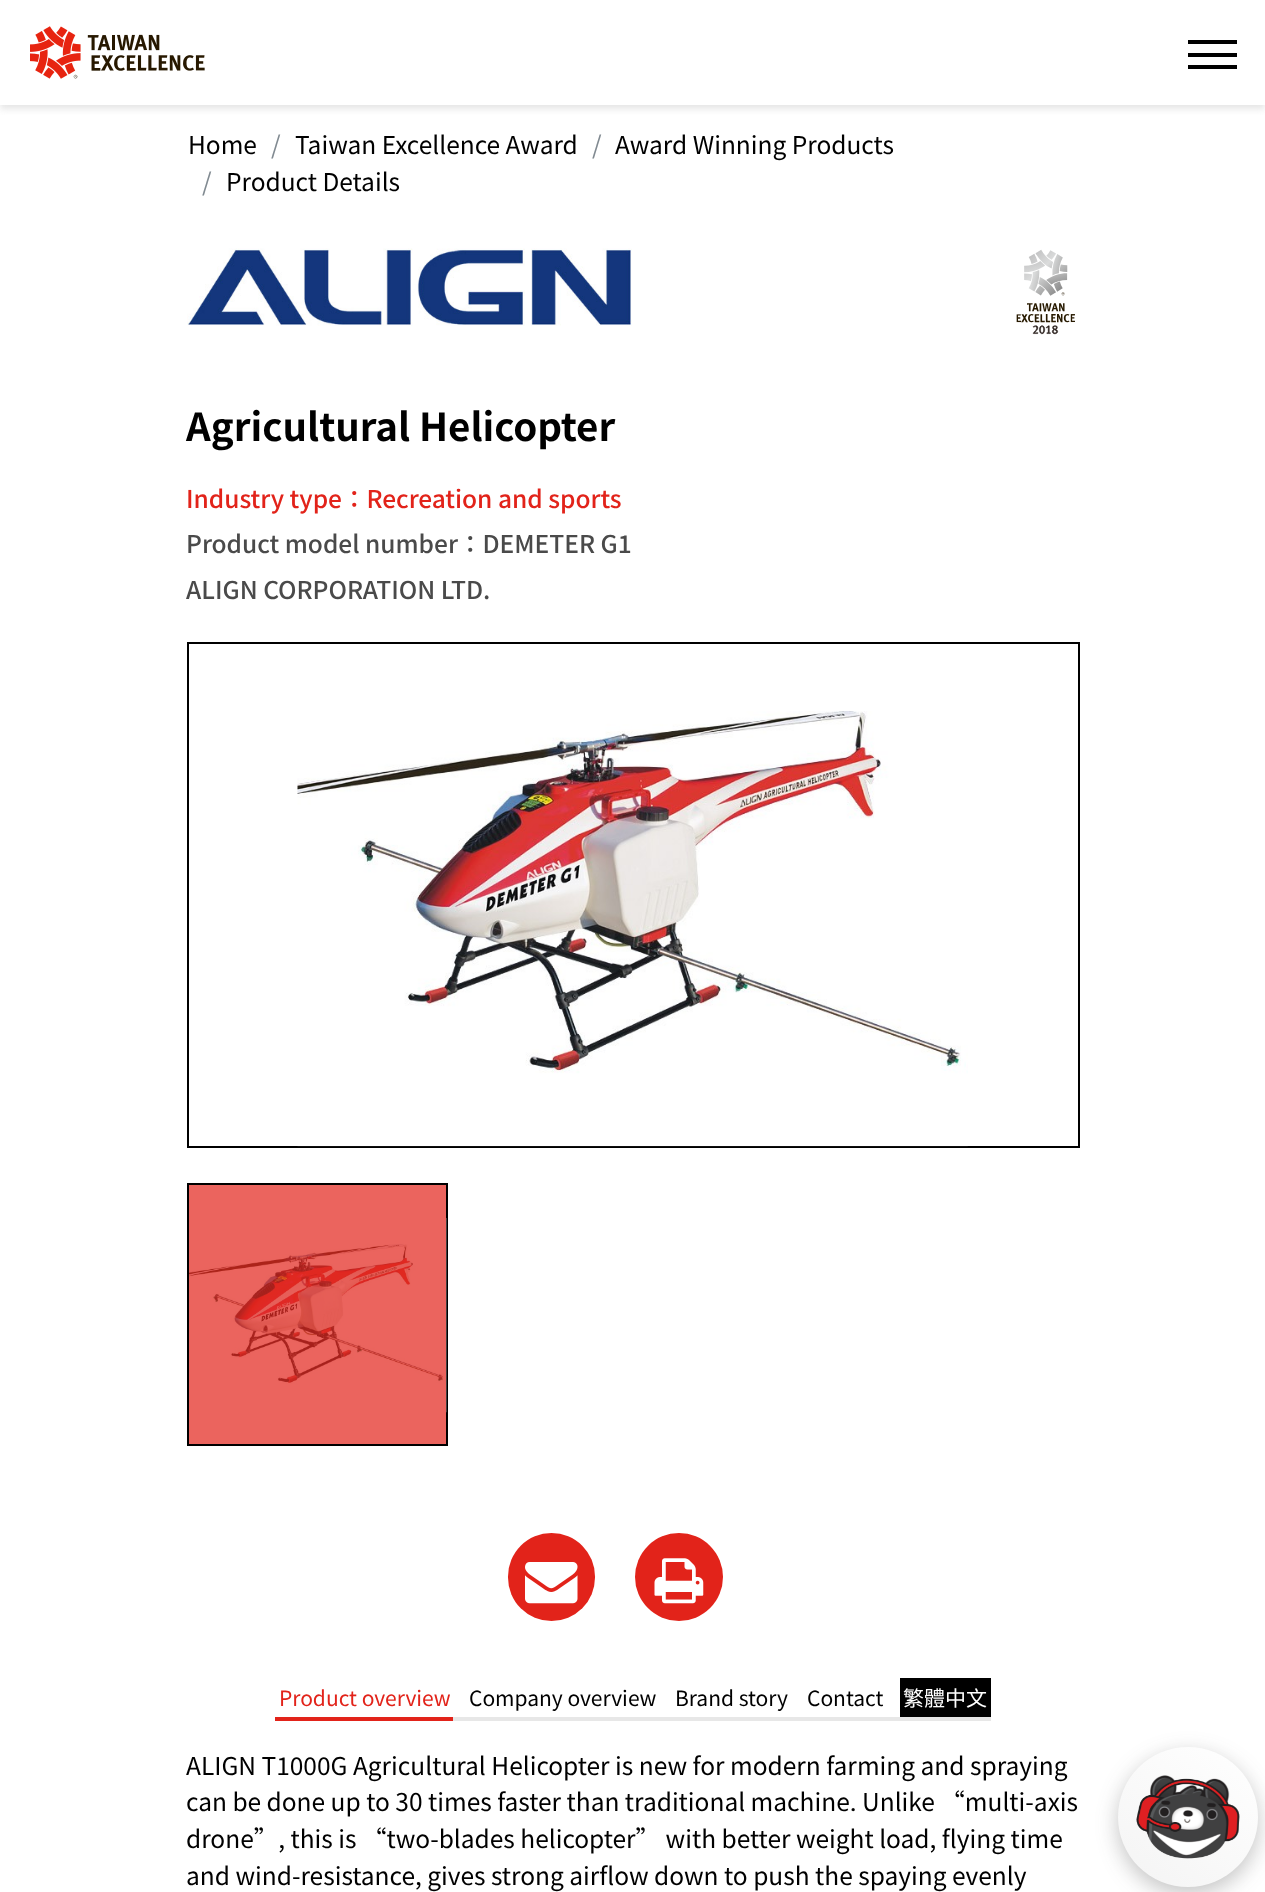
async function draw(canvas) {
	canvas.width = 1265;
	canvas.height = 1892;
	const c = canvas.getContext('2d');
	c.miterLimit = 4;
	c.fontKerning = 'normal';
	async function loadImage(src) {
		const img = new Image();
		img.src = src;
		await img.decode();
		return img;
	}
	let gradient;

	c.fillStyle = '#fff';
	c.fillRect(0, 0, 1265, 1892);
	c.save();
	c.beginPath();
	c.rect(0, 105, 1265, 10);
	c.clip();
	c.fillStyle = '#cbcbcb80';
	c.filter = 'blur(3.5px)';
	c.beginPath();
	c.rect(0, 4, 1265, 105);
	c.fill();
	c.filter = 'none';
	c.restore();
	c.drawImage(await loadImage('img1.png'), 30, 26, 175, 53);
	for (const [x, y, w, h, color] of [
		[1188, 40, 49, 4, '#000'],
		[1188, 53, 49, 4, '#000'],
		[1188, 65, 49, 4, '#000'],
	]) {
		c.fillStyle = color;
		c.fillRect(x, y, w, h);
	}
	c.font = '24.5px Noto Sans TC';
	c.fillText('Home', 188, 154);
	c.fillStyle = '#818a91';
	c.fillText('/', 271, 154);
	c.fillStyle = '#000';
	c.fillText('Taiwan Excellence Award', 295, 154);
	c.fillStyle = '#818a91';
	c.fillText('/', 592, 154);
	c.fillStyle = '#000';
	c.fillText('Award Winning Products', 615, 154);
	c.fillStyle = '#818a91';
	c.fillText('/', 202, 191);
	c.fillStyle = '#000';
	c.fillText('Product Details', 226, 191);
	c.drawImage(await loadImage('img2.png'), 187, 248, 445, 78);
	c.drawImage(await loadImage('img3.png'), 1016, 249, 59, 86);
	c.font = 'bold 38.5px Noto Sans TC';
	c.fillText('Agricultural Helicopter', 186, 441);
	c.font = '500 24.5px Noto Sans TC';
	c.fillStyle = '#e2231a';
	c.fillText('Industry type：Recreation and sports', 186, 508);
	c.fillStyle = '#4a4a4a';
	c.fillText('Product model number：DEMETER G1', 186, 553);
	c.fillText('ALIGN CORPORATION LTD.', 186, 599);
	c.strokeStyle = '#000';
	c.lineWidth = 2;
	c.strokeRect(188, 643, 891, 504);
	c.drawImage(await loadImage('img4.png'), 297, 711, 671, 436);
	c.fillStyle = '#eb645e';
	c.beginPath();
	c.rect(188, 1184, 259, 261);
	c.fill();
	c.stroke();
	c.drawImage(await loadImage('img5.png'), 189, 1218, 258, 195);
	c.fillStyle = '#e2231a';
	c.beginPath();
	c.roundRect(508, 1533, 87, 88, 43.5);
	c.fill();
	c.drawImage(await loadImage('img6.png'), 525, 1562, 53, 42);
	c.beginPath();
	c.arc(679, 1577, 44, 0, 2 * Math.PI);
	c.fill();
	c.drawImage(await loadImage('img7.png'), 654, 1558, 50, 46);
	c.fillStyle = '#e7e7e7';
	c.fillRect(453, 1717, 538, 4);
	c.fillStyle = '#e2231a';
	c.fillRect(275, 1717, 178, 4);
	c.font = '21px Noto Sans TC';
	c.fillText('Product overview', 279, 1706);
	c.fillStyle = '#000';
	for (const [text, x, y] of [
		['Company overview', 469, 1706],
		['Brand story', 675, 1706],
		['Contact', 807, 1706],
	]) {
		c.fillText(text, x, y);
	}
	c.fillRect(900, 1678, 91, 39);
	c.fillStyle = '#fff';
	c.fillText('繁體中文', 903, 1706);
	c.font = '24.5px Noto Sans TC';
	c.fillStyle = '#000';
	for (const [text, x, y] of [
		['ALIGN T1000G Agricultural Helicopter is new for modern farming and spraying', 186, 1775],
		['can be done up to 30 times faster than traditional machine. Unlike “multi-axis', 186, 1811],
		['drone”, this is “two-blades helicopter” with better weight load, flying time', 186, 1848],
		['and wind-resistance, gives strong airflow down to push the spaying evenly', 186, 1885],
	]) {
		c.fillText(text, x, y);
	}
	c.fillStyle = '#3c3c3c4d';
	c.filter = 'blur(10.5px)';
	c.beginPath();
	c.roundRect(1118, 1754, 140, 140, 70);
	c.fill();
	c.filter = 'none';
	gradient = c.createLinearGradient(1246, 1737, 1131, 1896);
	gradient.addColorStop(0, '#fff');
	gradient.addColorStop(1, '#f4f4f4');
	c.fillStyle = gradient;
	c.beginPath();
	c.arc(1188, 1817, 70, 0, 2 * Math.PI);
	c.fill();
	c.drawImage(await loadImage('img8.png'), 1136, 1775, 104, 84);
}

draw(document.querySelector('canvas'));
